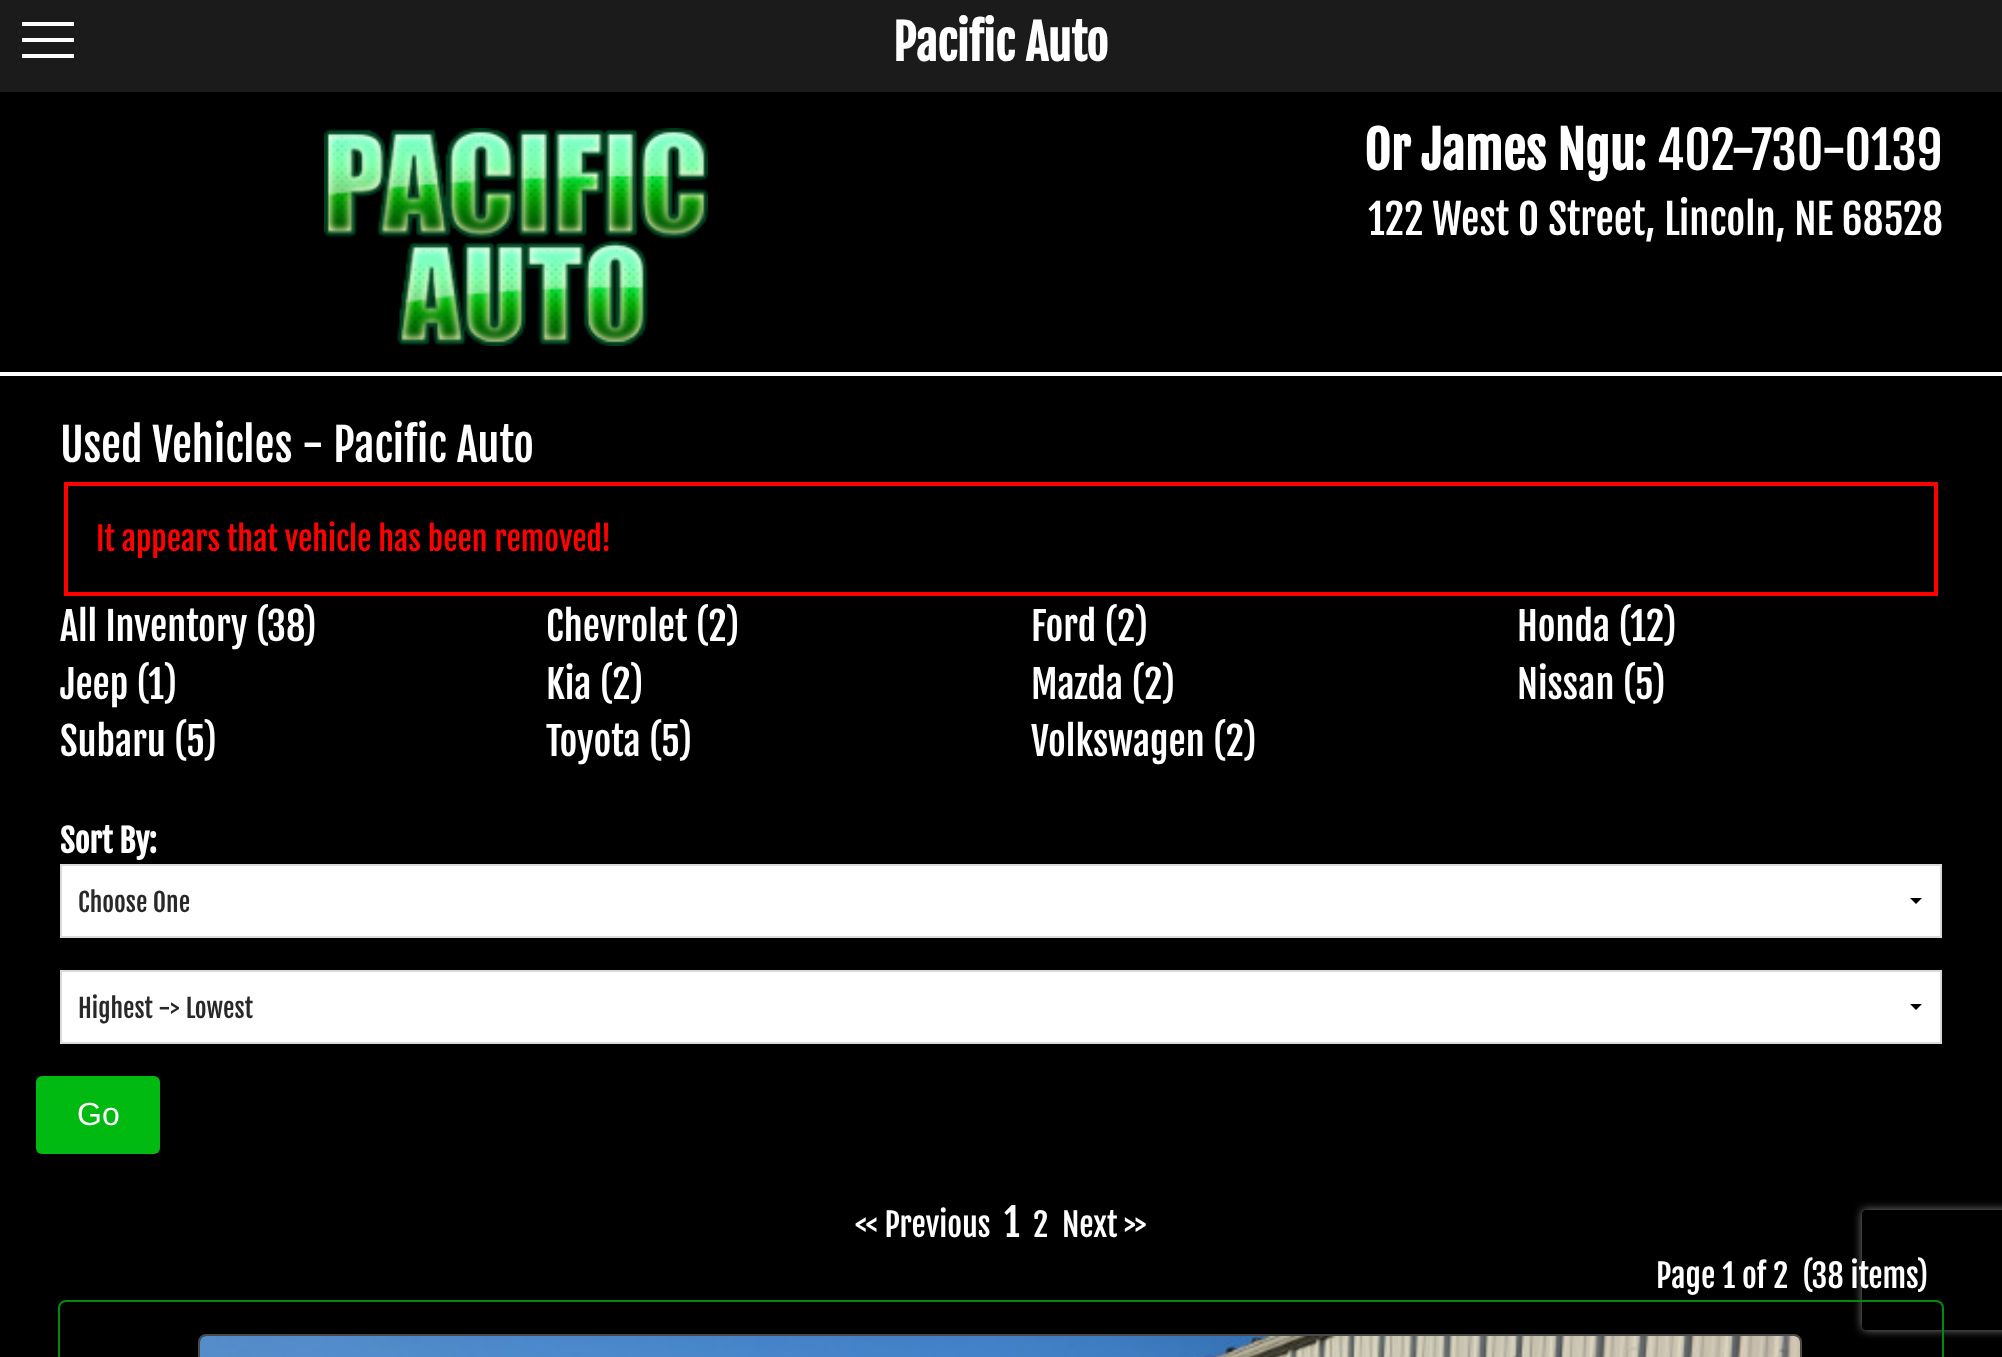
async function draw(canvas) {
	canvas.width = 2002;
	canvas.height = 1357;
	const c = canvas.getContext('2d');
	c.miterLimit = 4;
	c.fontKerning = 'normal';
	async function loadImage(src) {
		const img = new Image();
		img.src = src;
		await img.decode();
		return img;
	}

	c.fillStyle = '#000';
	c.fillRect(0, 0, 2002, 1357);
	for (const [x, y, w, h, color] of [
		[0, 0, 2002, 92, '#1b1b1b'],
		[22, 22, 52, 4, '#fff'],
		[22, 38, 52, 4, '#fff'],
		[22, 54, 52, 4, '#fff'],
	]) {
		c.fillStyle = color;
		c.fillRect(x, y, w, h);
	}
	c.font = 'bold 48px Fjalla One';
	c.fillText('Pacific Auto', 893, 61);
	c.drawImage(await loadImage('img1.png'), 324, 128, 384, 218);
	c.font = 'bold 51.25px Fjalla One';
	c.fillText('Or James Ngu:', 1364, 170);
	c.font = '51.25px Fjalla One';
	c.fillText('402-730-0139', 1657, 170);
	c.font = '41px Fjalla One';
	c.fillText('122 West O Street, Lincoln, NE 68528', 1368, 235);
	c.fillRect(0, 372, 2002, 4);
	c.font = '44.75px Fjalla One';
	c.fillText('Used Vehicles - Pacific Auto', 60, 462);
	c.strokeStyle = '#f00';
	c.lineWidth = 4;
	c.strokeRect(66, 484, 1870, 110);
	c.font = '32px Fjalla One';
	c.fillStyle = '#f00';
	c.fillText('It appears that vehicle has been removed!', 96, 551);
	c.font = '38.5px Fjalla One';
	c.fillStyle = '#fff';
	for (const [text, x, y] of [
		['All Inventory (38)', 60, 641],
		['Chevrolet (2)', 546, 641],
		['Ford (2)', 1031, 641],
		['Honda (12)', 1517, 641],
		['Jeep (1)', 60, 699],
		['Kia (2)', 546, 699],
		['Mazda (2)', 1031, 699],
		['Nissan (5)', 1517, 699],
		['Subaru (5)', 60, 756],
		['Toyota (5)', 546, 756],
		['Volkswagen (2)', 1031, 756],
	]) {
		c.fillText(text, x, y);
	}
	c.font = 'bold 32px Fjalla One';
	c.fillText('Sort By:', 60, 853);
	c.fillRect(62, 866, 1878, 70);
	c.fillStyle = '#000';
	c.beginPath();
	c.moveTo(1922, 898);
	c.lineTo(1916, 904);
	c.lineTo(1910, 898);
	c.closePath();
	c.fill();
	c.strokeStyle = '#dadada';
	c.lineWidth = 2;
	c.strokeRect(61, 865, 1880, 72);
	c.font = '25.5px Fjalla One';
	c.fillStyle = '#292929';
	c.fillText('Choose One', 78, 912);
	c.fillStyle = '#fff';
	c.fillRect(62, 972, 1878, 70);
	c.fillStyle = '#000';
	c.beginPath();
	c.moveTo(1922, 1004);
	c.lineTo(1916, 1010);
	c.lineTo(1910, 1004);
	c.closePath();
	c.fill();
	c.strokeRect(61, 971, 1880, 72);
	c.fillStyle = '#292929';
	c.fillText('Highest -> Lowest', 78, 1018);
	c.fillStyle = '#00b911';
	c.beginPath();
	c.roundRect(36, 1076, 124, 78, 6);
	c.fill();
	c.font = '32px Liberation Sans';
	c.fillStyle = '#fff';
	c.fillText('Go', 77, 1125);
	c.font = '32px Fjalla One';
	c.fillText('<< Previous', 855, 1237);
	c.font = '38.5px Fjalla One';
	c.fillText('1', 1004, 1237);
	c.font = '32px Fjalla One';
	c.fillText('2', 1033, 1237);
	c.fillText('Next >>', 1062, 1237);
	c.save();
	c.beginPath();
	c.moveTo(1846, 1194);
	c.lineTo(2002, 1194);
	c.lineTo(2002, 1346);
	c.lineTo(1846, 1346);
	c.closePath();
	c.moveTo(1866, 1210);
	c.lineTo(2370, 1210);
	c.bezierCurveTo(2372, 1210, 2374, 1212, 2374, 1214);
	c.lineTo(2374, 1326);
	c.bezierCurveTo(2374, 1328, 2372, 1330, 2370, 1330);
	c.lineTo(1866, 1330);
	c.bezierCurveTo(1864, 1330, 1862, 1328, 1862, 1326);
	c.lineTo(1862, 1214);
	c.bezierCurveTo(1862, 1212, 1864, 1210, 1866, 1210);
	c.closePath();
	c.clip('evenodd');
	c.fillStyle = '#808080';
	c.filter = 'blur(5px)';
	c.beginPath();
	c.roundRect(1862, 1210, 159, 120, 4);
	c.fill();
	c.filter = 'none';
	c.restore();
	c.fillText('Page 1 of 2  (38 items)', 1656, 1288);
	c.beginPath();
	c.roundRect(59, 1301, 1884, 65, 7);
	c.strokeStyle = '#008b0d';
	c.stroke();
	c.beginPath();
	c.roundRect(199, 1335, 1602, 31, 7);
	c.strokeStyle = '#494949';
	c.stroke();
	c.drawImage(await loadImage('img2.png'), 200, 1336, 1600, 21);
}

draw(document.querySelector('canvas'));
